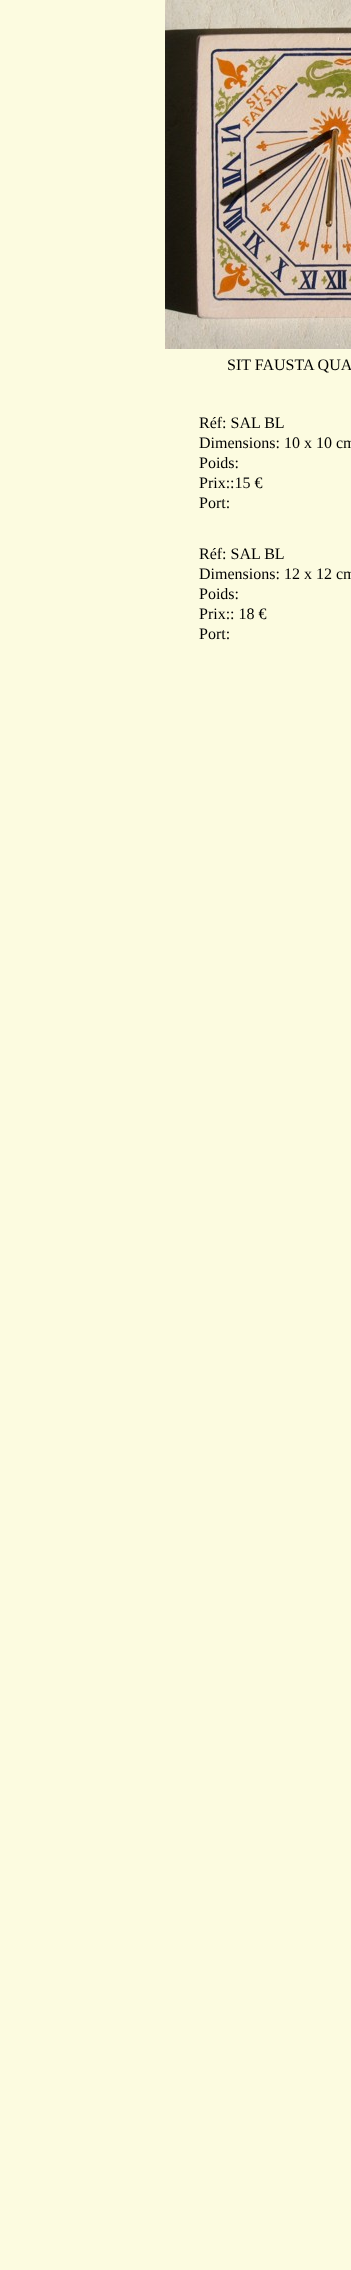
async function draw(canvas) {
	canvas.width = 351;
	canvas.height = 2270;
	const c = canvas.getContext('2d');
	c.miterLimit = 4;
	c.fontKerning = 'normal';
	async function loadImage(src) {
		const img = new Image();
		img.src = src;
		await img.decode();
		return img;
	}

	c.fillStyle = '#fcfbe0';
	c.fillRect(0, 0, 351, 2270);
	c.drawImage(await loadImage('img1.png'), 165, 0, 186, 349);
	c.font = '16px Liberation Serif';
	c.fillStyle = '#000';
	for (const [text, x, y] of [
		['SIT FAUSTA QUA', 227, 370],
		['Réf: SAL BL', 199, 428],
		['Dimensions: 10 x 10 cm', 199, 448],
		['Poids:', 199, 468],
		['Prix::15 €', 199, 488],
		['Port:', 199, 508],
		['Réf: SAL BL', 199, 559],
		['Dimensions: 12 x 12 cm', 199, 579],
		['Poids:', 199, 599],
		['Prix:: 18 €', 199, 619],
		['Port:', 199, 639],
	]) {
		c.fillText(text, x, y);
	}
}

draw(document.querySelector('canvas'));
